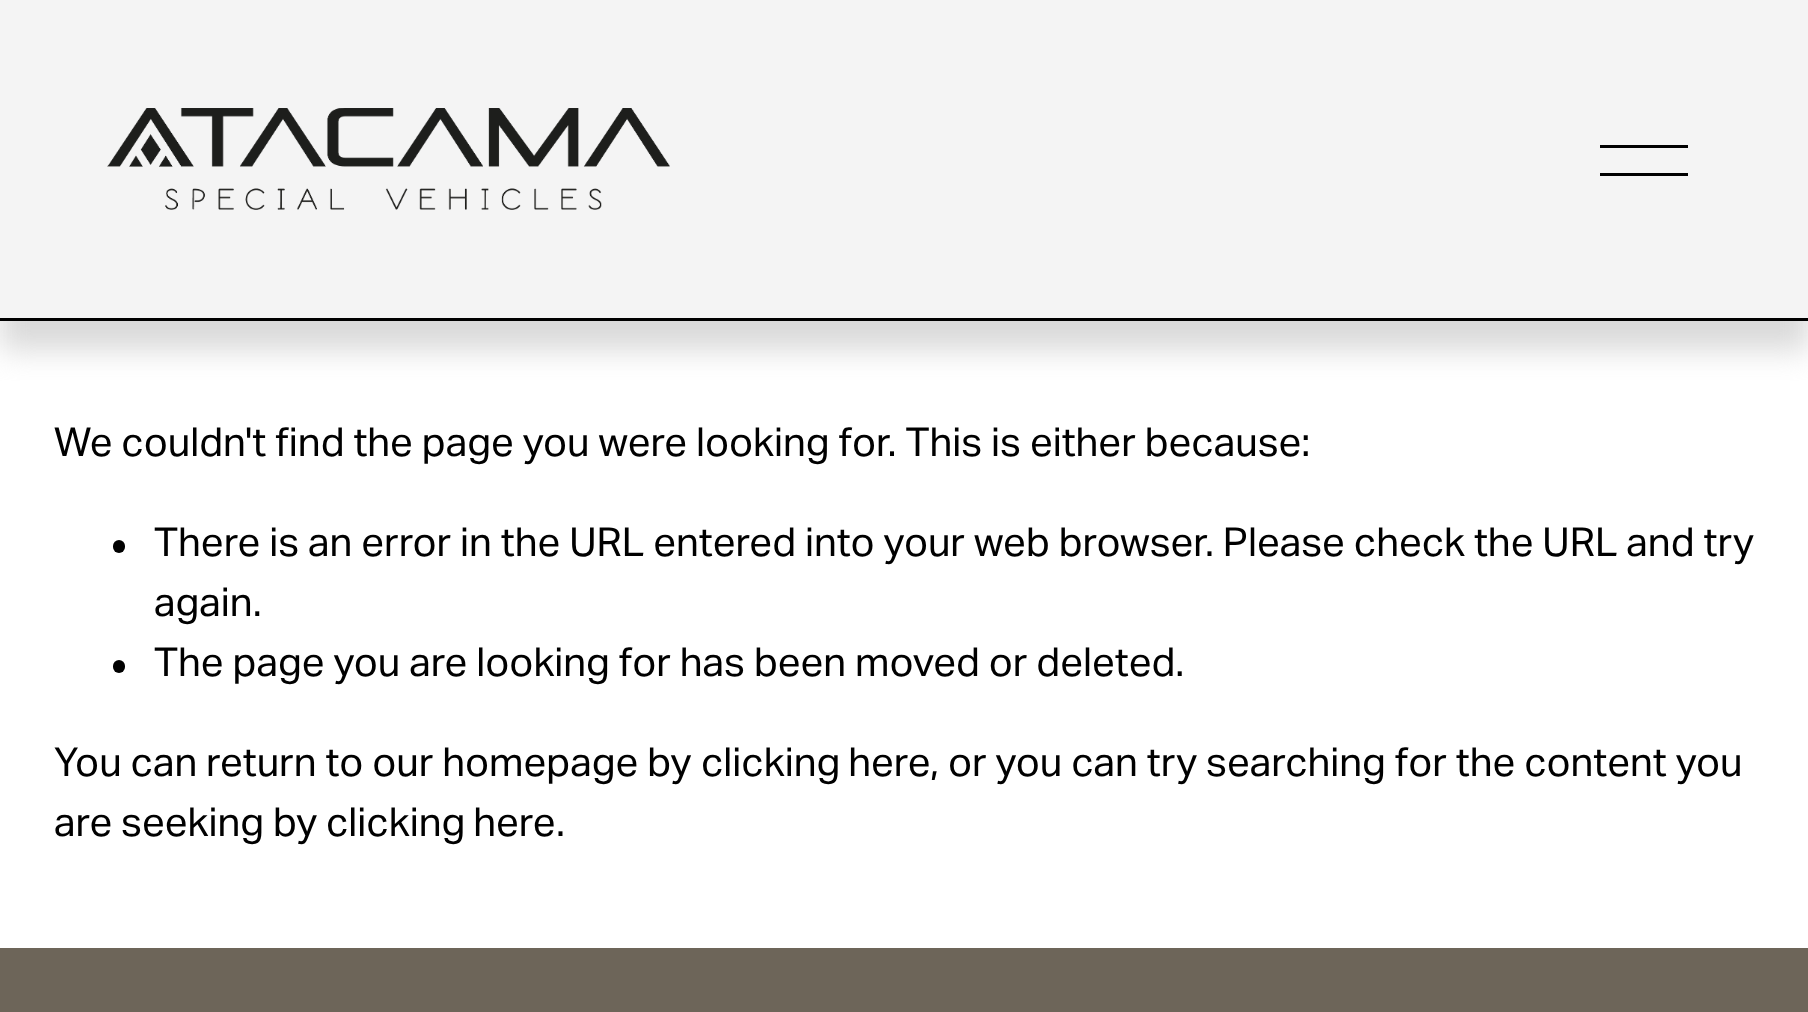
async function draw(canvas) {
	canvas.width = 1808;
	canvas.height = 1012;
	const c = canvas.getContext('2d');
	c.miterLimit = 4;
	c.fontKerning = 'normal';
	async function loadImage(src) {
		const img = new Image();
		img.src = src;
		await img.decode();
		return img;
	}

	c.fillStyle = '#fff';
	c.fillRect(0, 0, 1808, 1012);
	c.fillStyle = '#f4f4f4';
	c.fillRect(0, 0, 1808, 318);
	c.save();
	c.beginPath();
	c.rect(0, 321, 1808, 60);
	c.clip();
	c.fillStyle = '#d9d9d9';
	c.filter = 'blur(15px)';
	c.beginPath();
	c.rect(0, 30, 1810, 320);
	c.fill();
	c.filter = 'none';
	c.restore();
	c.drawImage(await loadImage('img1.png'), 107, 108, 563, 102);
	for (const [x, y, w, h, color] of [
		[1600, 145, 88, 3, '#000'],
		[1600, 173, 88, 3, '#000'],
		[0, 318, 1808, 3, '#000'],
	]) {
		c.fillStyle = color;
		c.fillRect(x, y, w, h);
	}
	c.font = '40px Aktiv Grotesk';
	c.fillText('We couldn\'t find the page you were looking for. This is either because:', 54, 456);
	c.beginPath();
	c.roundRect(113, 540, 12, 13, 6);
	c.fill();
	c.fillText('There is an error in the URL entered into your web browser. Please check the URL and try', 154, 556);
	c.fillText('again.', 154, 616);
	c.beginPath();
	c.roundRect(113, 660, 12, 13, 6);
	c.fill();
	c.fillText('The page you are looking for has been moved or deleted.', 154, 676);
	c.fillText('You can return to our homepage by', 54, 776);
	c.wordSpacing = '-1px';
	c.fillText('clicking here', 701, 776);
	c.wordSpacing = '0px';
	c.fillText(', or you can try searching for the content you', 930, 776);
	c.fillText('are seeking by', 54, 836);
	c.wordSpacing = '-1px';
	c.fillText('clicking here', 326, 836);
	c.wordSpacing = '0px';
	c.fillText('.', 556, 836);
	c.fillStyle = '#6d6559';
	c.fillRect(0, 948, 1808, 64);
}

draw(document.querySelector('canvas'));
